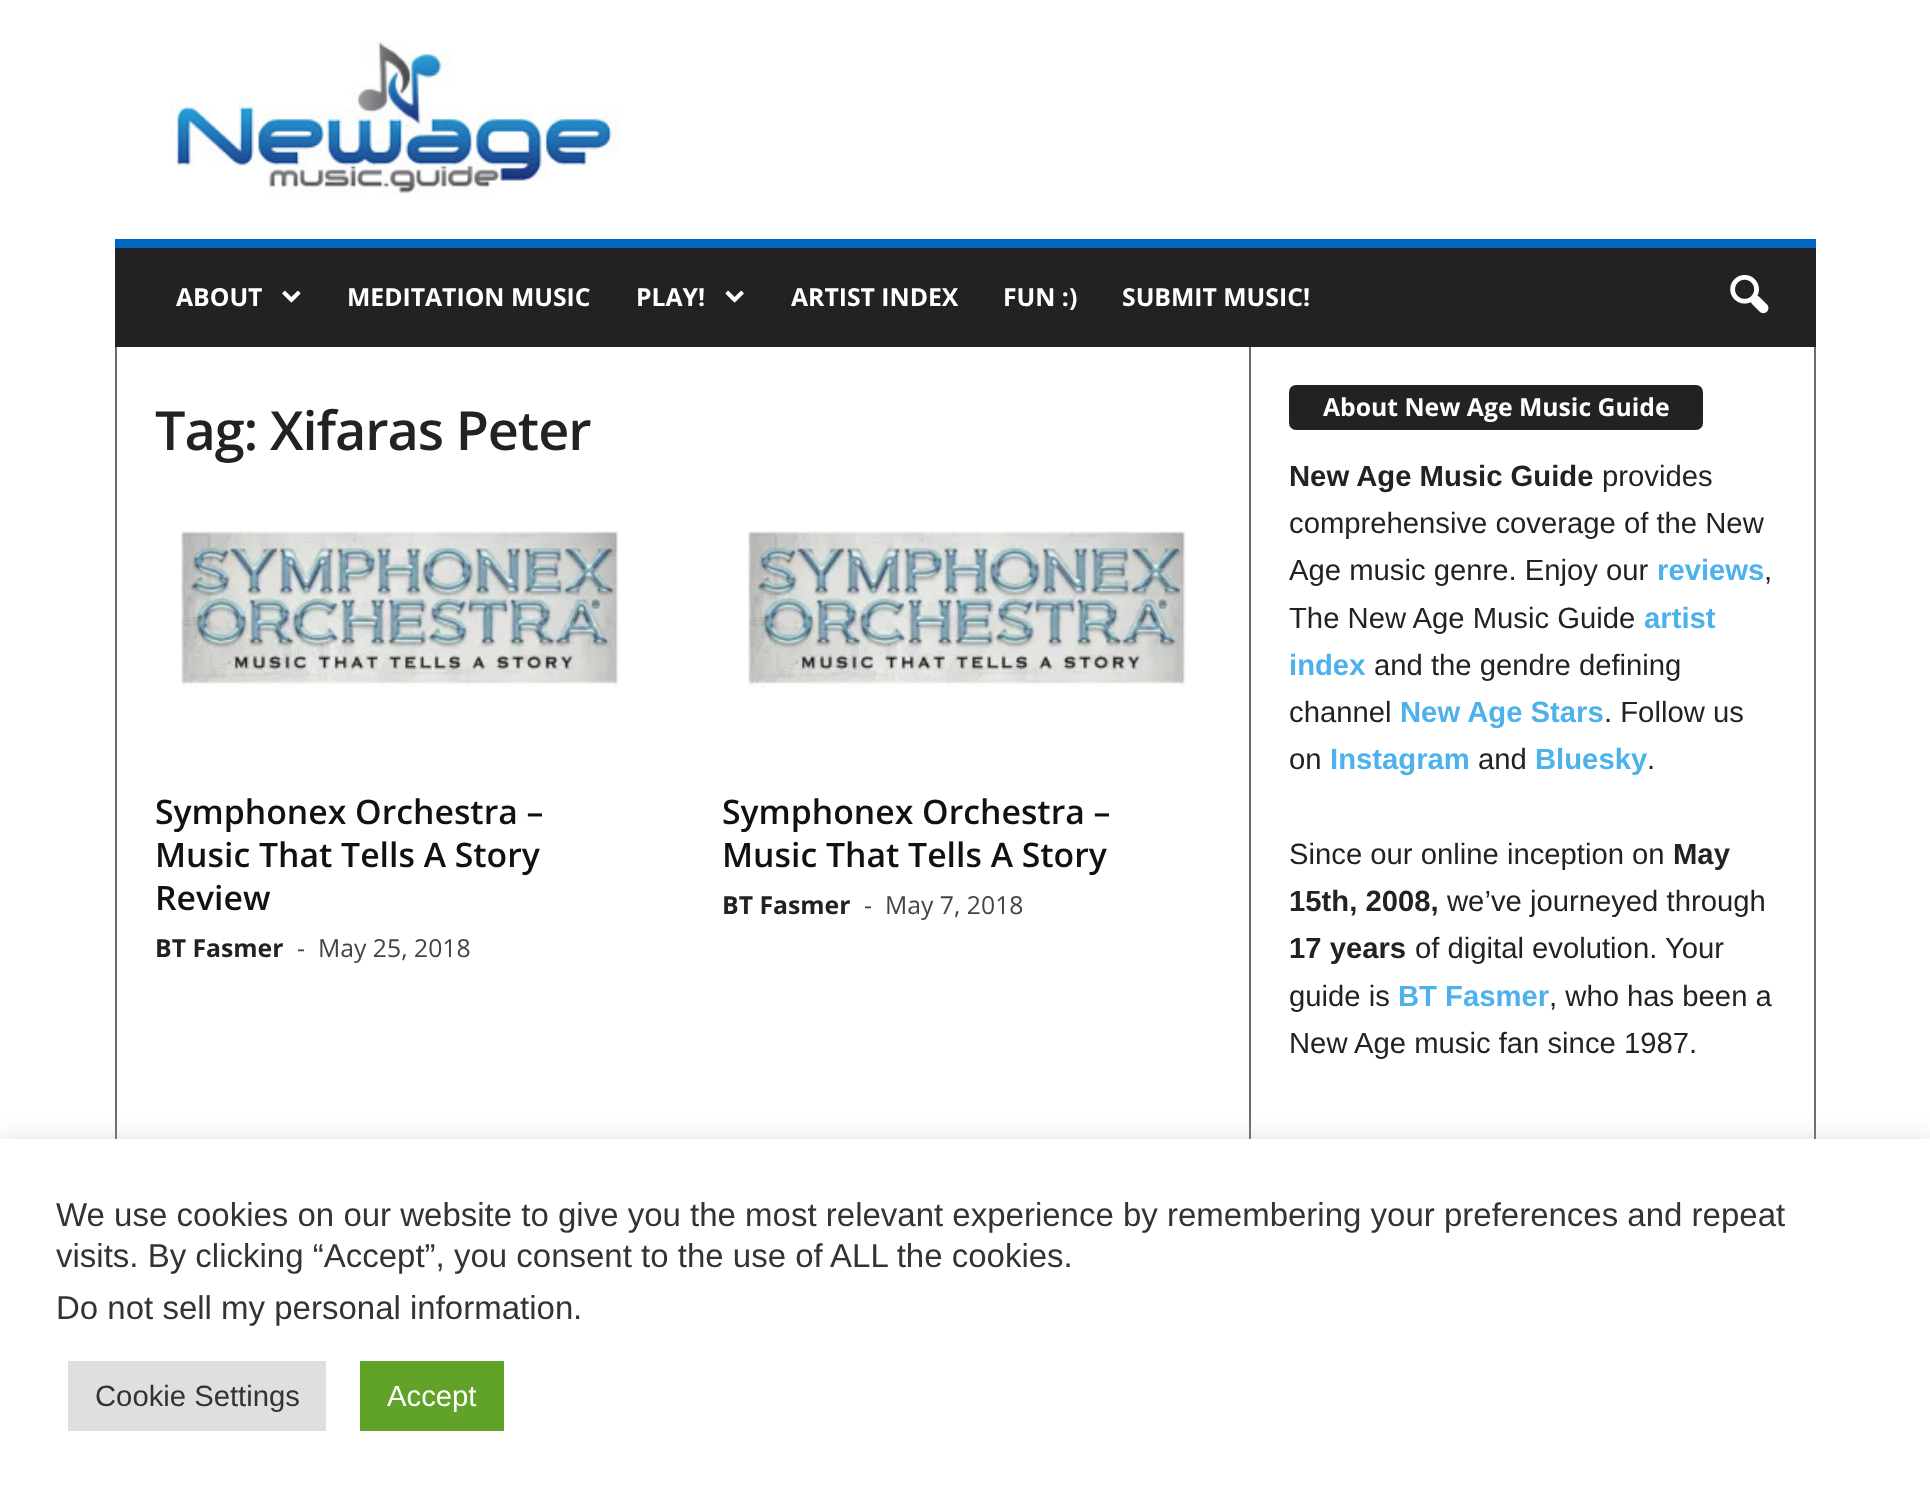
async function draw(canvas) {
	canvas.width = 1930;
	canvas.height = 1497;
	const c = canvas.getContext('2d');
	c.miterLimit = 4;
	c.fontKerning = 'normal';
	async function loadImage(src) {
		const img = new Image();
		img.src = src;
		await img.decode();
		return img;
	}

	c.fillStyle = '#fff';
	c.fillRect(0, 0, 1930, 1497);
	c.drawImage(await loadImage('img1.png'), 169, 40, 450, 154);
	c.fillStyle = '#222';
	c.fillRect(115, 248, 1701, 99);
	c.fillStyle = '#0066bf';
	c.fillRect(115, 239, 1701, 9);
	c.font = 'bold 24.75px Open Sans';
	c.fillStyle = '#fff';
	c.fillText('ABOUT', 176, 306);
	c.drawImage(await loadImage('img2.png'), 282, 290, 19, 13);
	c.fillText('MEDITATION MUSIC', 347, 306);
	c.fillText('PLAY!', 636, 306);
	c.drawImage(await loadImage('img3.png'), 725, 290, 19, 13);
	for (const [text, x, y] of [
		['ARTIST INDEX', 791, 306],
		['FUN :)', 1003, 306],
		['SUBMIT MUSIC!', 1122, 306],
	]) {
		c.fillText(text, x, y);
	}
	c.drawImage(await loadImage('img4.png'), 1730, 274, 39, 40);
	c.fillStyle = '#6d6d6d';
	c.fillRect(115, 347, 2, 792);
	c.letterSpacing = '-1.1px';
	c.font = '600 54px Open Sans';
	c.fillStyle = '#222';
	c.fillText('Tag: Xifaras Peter', 155, 450);
	c.drawImage(await loadImage('img5.png'), 181, 530, 438, 157);
	c.letterSpacing = '0px';
	c.font = '600 33.75px Open Sans';
	c.fillStyle = '#111';
	for (const [text, x, y] of [
		['Symphonex Orchestra –', 155, 824],
		['Music That Tells A Story', 155, 867],
		['Review', 155, 910],
	]) {
		c.fillText(text, x, y);
	}
	c.font = 'bold 24.75px Open Sans';
	c.fillStyle = '#222';
	c.fillText('BT Fasmer', 155, 957);
	c.font = '24.75px Open Sans';
	c.fillStyle = '#444';
	c.fillText('-', 297, 957);
	c.fillText('May 25, 2018', 318, 957);
	c.drawImage(await loadImage('img5.png'), 748, 530, 438, 157);
	c.font = '600 33.75px Open Sans';
	c.fillStyle = '#111';
	c.fillText('Symphonex Orchestra –', 722, 824);
	c.fillText('Music That Tells A Story', 722, 867);
	c.font = 'bold 24.75px Open Sans';
	c.fillStyle = '#222';
	c.fillText('BT Fasmer', 722, 914);
	c.font = '24.75px Open Sans';
	c.fillStyle = '#444';
	c.fillText('-', 864, 914);
	c.fillText('May 7, 2018', 885, 914);
	c.fillStyle = '#6d6d6d';
	c.fillRect(1249, 347, 2, 792);
	c.fillStyle = '#222';
	c.beginPath();
	c.roundRect(1289, 385, 414, 45, 7);
	c.fill();
	c.font = 'bold 24.75px Open Sans';
	c.fillStyle = '#fff';
	c.fillText('About New Age Music Guide', 1323, 416);
	c.font = 'bold 29.25px Liberation Sans';
	c.fillStyle = '#222';
	c.fillText('New Age Music Guide', 1289, 486);
	c.font = '29.25px Liberation Sans';
	for (const [text, x, y] of [
		['provides', 1602, 486],
		['comprehensive coverage of the New', 1289, 533],
		['Age music genre. Enjoy our', 1289, 580],
	]) {
		c.fillText(text, x, y);
	}
	c.font = 'bold 29.25px Liberation Sans';
	c.fillStyle = '#4db2ec';
	c.fillText('reviews', 1657, 580);
	c.font = '29.25px Liberation Sans';
	c.fillStyle = '#222';
	c.fillText(',', 1764, 580);
	c.fillText('The New Age Music Guide', 1289, 628);
	c.font = 'bold 29.25px Liberation Sans';
	c.fillStyle = '#4db2ec';
	c.fillText('artist', 1644, 628);
	c.fillText('index', 1289, 675);
	c.font = '29.25px Liberation Sans';
	c.fillStyle = '#222';
	c.fillText('and the gendre defining', 1374, 675);
	c.fillText('channel', 1289, 722);
	c.font = 'bold 29.25px Liberation Sans';
	c.fillStyle = '#4db2ec';
	c.fillText('New Age Stars', 1400, 722);
	c.font = '29.25px Liberation Sans';
	c.fillStyle = '#222';
	c.fillText('. Follow us', 1604, 722);
	c.fillText('on', 1289, 769);
	c.font = 'bold 29.25px Liberation Sans';
	c.fillStyle = '#4db2ec';
	c.fillText('Instagram', 1330, 769);
	c.font = '29.25px Liberation Sans';
	c.fillStyle = '#222';
	c.fillText('and', 1478, 769);
	c.font = 'bold 29.25px Liberation Sans';
	c.fillStyle = '#4db2ec';
	c.fillText('Bluesky', 1535, 769);
	c.font = '29.25px Liberation Sans';
	c.fillStyle = '#222';
	c.fillText('.', 1647, 769);
	c.fillText('Since our online inception on', 1289, 864);
	c.font = 'bold 29.25px Liberation Sans';
	c.fillText('May', 1673, 864);
	c.fillText('15th, 2008,', 1289, 911);
	c.font = '29.25px Liberation Sans';
	c.fillText('we’ve journeyed through', 1447, 911);
	c.font = 'bold 29.25px Liberation Sans';
	c.fillText('17 years', 1289, 958);
	c.font = '29.25px Liberation Sans';
	c.fillText('of digital evolution. Your', 1415, 958);
	c.fillText('guide is', 1289, 1006);
	c.font = 'bold 29.25px Liberation Sans';
	c.fillStyle = '#4db2ec';
	c.fillText('BT Fasmer', 1398, 1006);
	c.font = '29.25px Liberation Sans';
	c.fillStyle = '#222';
	c.fillText(', who has been a', 1549, 1006);
	c.fillText('New Age music fan since 1987.', 1289, 1053);
	c.fillStyle = '#6d6d6d';
	c.fillRect(1814, 347, 2, 792);
	c.fillStyle = '#acabab4d';
	c.filter = 'blur(11px)';
	c.beginPath();
	c.rect(0, 1136, 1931, 360);
	c.fill();
	c.filter = 'none';
	c.fillStyle = '#fff';
	c.fillRect(0, 1139, 1930, 358);
	c.font = '33px Liberation Sans';
	c.fillStyle = '#333';
	for (const [text, x, y] of [
		['We use cookies on our website to give you the most relevant experience by remembering your preferences and repeat', 56, 1226],
		['visits. By clicking “Accept”, you consent to the use of ALL the cookies.', 56, 1267],
		['Do not sell my personal information', 56, 1319],
		['.', 573, 1319],
	]) {
		c.fillText(text, x, y);
	}
	c.fillStyle = '#dedfe0';
	c.fillRect(68, 1361, 258, 70);
	c.font = '29.25px Liberation Sans';
	c.fillStyle = '#333';
	c.fillText('Cookie Settings', 95, 1406);
	c.fillStyle = '#61a229';
	c.fillRect(360, 1361, 144, 70);
	c.fillStyle = '#fff';
	c.fillText('Accept', 387, 1406);
}

draw(document.querySelector('canvas'));
